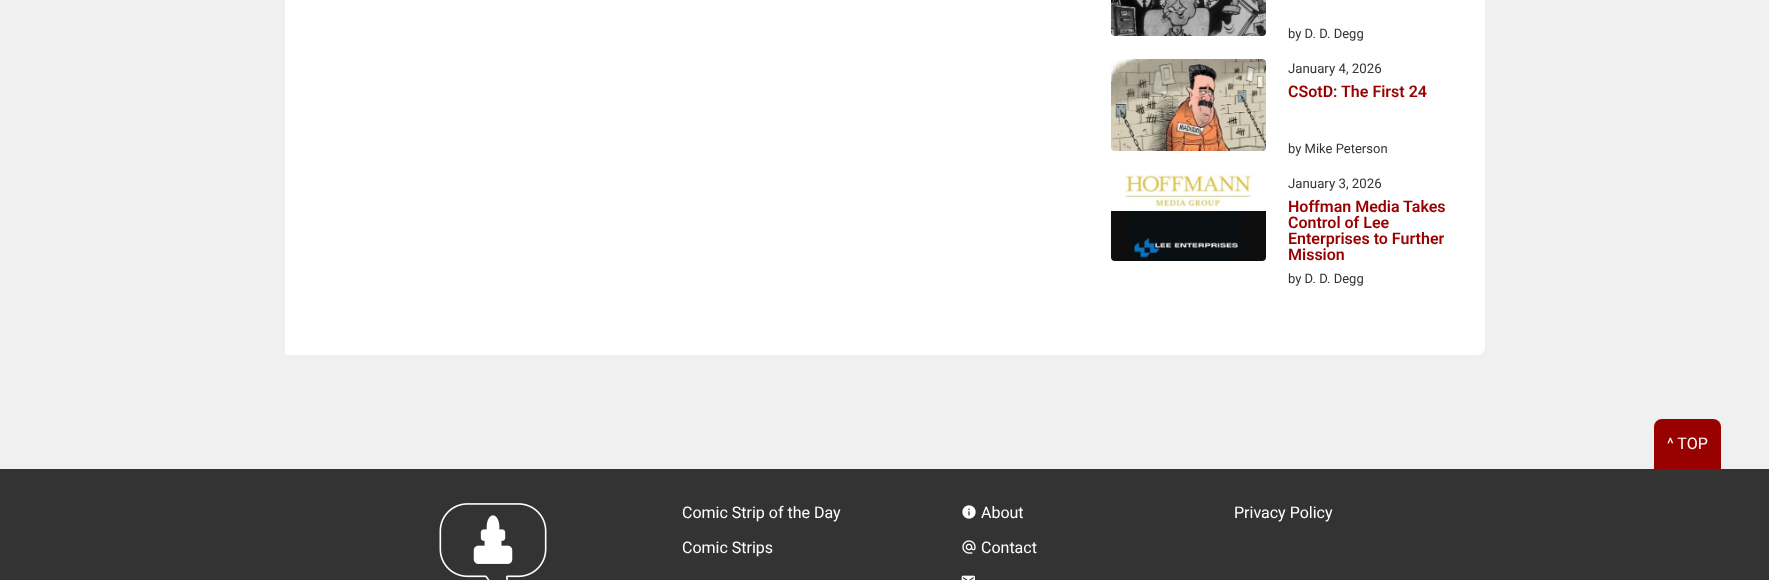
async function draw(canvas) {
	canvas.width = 1769;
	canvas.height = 580;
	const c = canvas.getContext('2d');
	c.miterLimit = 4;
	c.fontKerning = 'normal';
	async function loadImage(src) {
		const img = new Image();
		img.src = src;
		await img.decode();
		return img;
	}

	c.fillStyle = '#f0f0f0';
	c.fillRect(0, 0, 1769, 580);
	c.fillStyle = '#fff';
	c.beginPath();
	c.moveTo(285, -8);
	c.lineTo(1485, -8);
	c.lineTo(1485, 347);
	c.bezierCurveTo(1485, 351.5, 1481.5, 355, 1477, 355);
	c.lineTo(285, 355);
	c.closePath();
	c.fill();
	c.drawImage(await loadImage('img1.png'), 1111, 0, 155, 36);
	c.font = '13px Roboto';
	c.fillStyle = '#333';
	c.fillText('by D. D. Degg', 1288, 38);
	c.drawImage(await loadImage('img2.png'), 1111, 59, 155, 92);
	c.font = '13.25px Roboto';
	c.fillText('January 4, 2026', 1288, 73);
	c.font = '600 16px Roboto';
	c.fillStyle = '#900';
	c.fillText('CSotD: The First 24', 1288, 97);
	c.font = '13px Roboto';
	c.fillStyle = '#333';
	c.fillText('by Mike Peterson', 1288, 153);
	c.drawImage(await loadImage('img3.png'), 1111, 174, 155, 87);
	c.font = '13.25px Roboto';
	c.fillText('January 3, 2026', 1288, 188);
	c.font = '600 16px Roboto';
	c.fillStyle = '#900';
	for (const [text, x, y] of [
		['Hoffman Media Takes', 1288, 212],
		['Control of Lee', 1288, 228],
		['Enterprises to Further', 1288, 244],
		['Mission', 1288, 260],
	]) {
		c.fillText(text, x, y);
	}
	c.font = '13px Roboto';
	c.fillStyle = '#333';
	c.fillText('by D. D. Degg', 1288, 283);
	c.fillStyle = '#900';
	c.beginPath();
	c.roundRect(1654, 419, 67, 50, [8, 8, 0, 0]);
	c.fill();
	c.font = '16px Roboto';
	c.fillStyle = '#fff';
	c.fillText('^ TOP', 1667, 449);
	c.fillStyle = '#333';
	c.fillRect(0, 469, 1769, 111);
	c.drawImage(await loadImage('img4.png'), 439, 503, 108, 77);
	c.fillStyle = '#fff';
	c.fillText('Comic Strip of the Day', 682, 518);
	c.fillText('Comic Strips', 682, 553);
	c.drawImage(await loadImage('img5.png'), 962, 505, 14, 14);
	c.fillText('About', 981, 518);
	c.drawImage(await loadImage('img6.png'), 962, 540, 14, 14);
	c.fillText('Contact', 981, 553);
	c.drawImage(await loadImage('img7.png'), 961, 575, 14, 5);
	c.fillText('Privacy Policy', 1234, 518);
}

draw(document.querySelector('canvas'));
